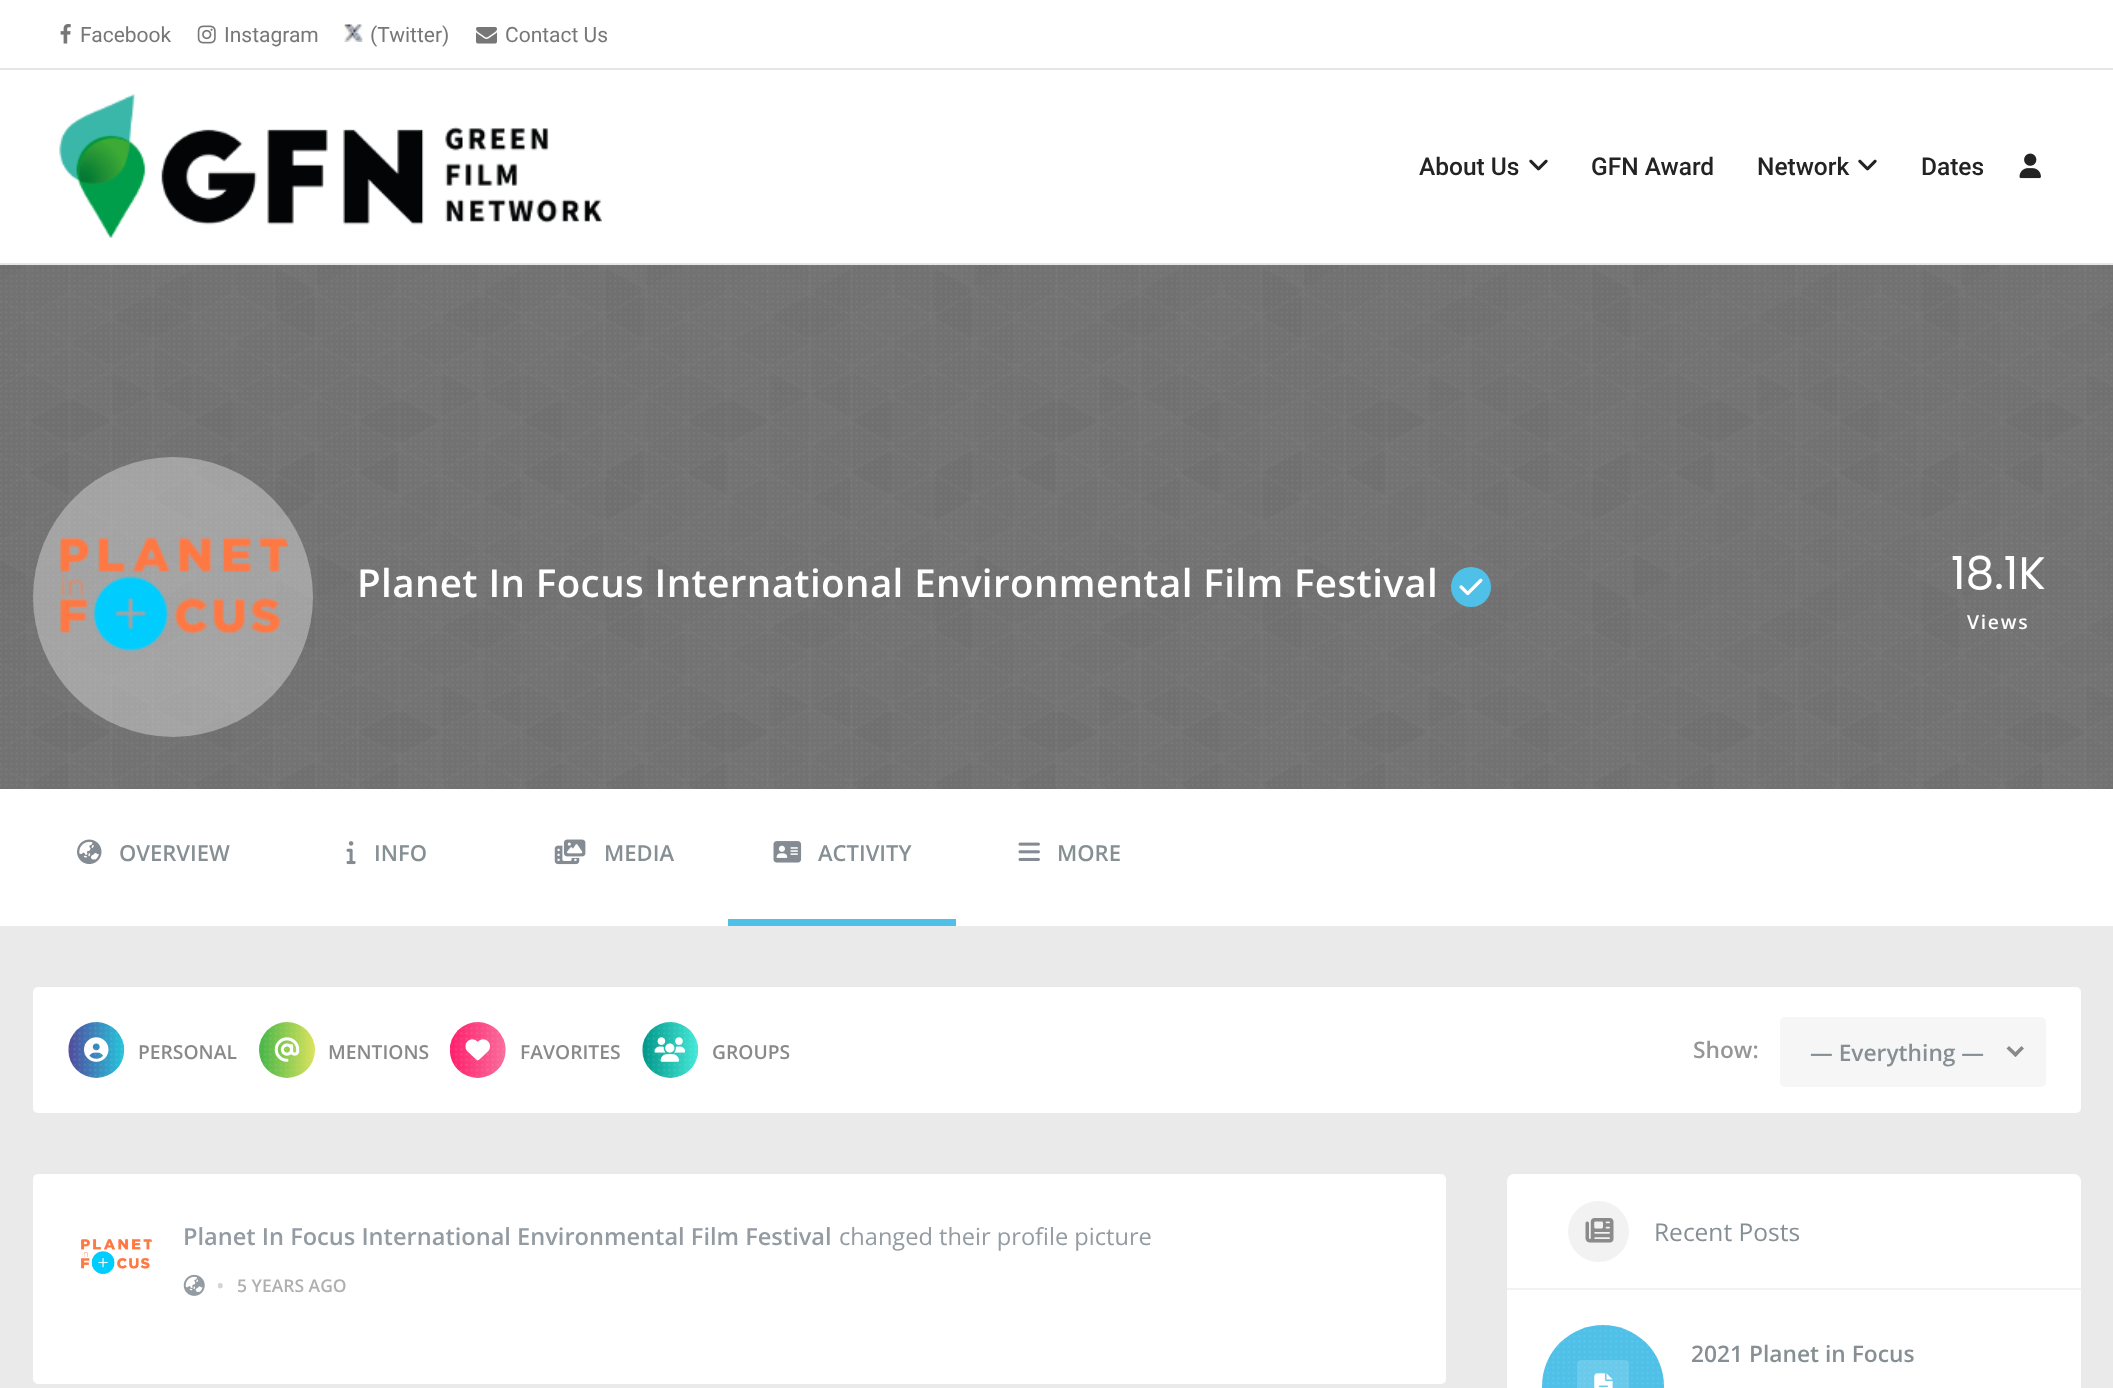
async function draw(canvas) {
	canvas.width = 2113;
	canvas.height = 1388;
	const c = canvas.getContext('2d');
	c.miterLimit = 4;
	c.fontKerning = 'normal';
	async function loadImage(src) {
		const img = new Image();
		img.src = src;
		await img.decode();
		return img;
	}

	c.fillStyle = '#fff';
	c.fillRect(0, 0, 2113, 1388);
	c.fillStyle = '#e6e6e6';
	c.fillRect(0, 68, 2113, 2);
	c.drawImage(await loadImage('img1.png'), 60, 24, 11, 20);
	c.font = '21px Roboto';
	c.fillStyle = '#777';
	c.fillText('Facebook', 80, 42);
	c.drawImage(await loadImage('img2.png'), 197, 25, 19, 19);
	c.fillText('Instagram', 224, 42);
	c.drawImage(await loadImage('img3.png'), 344, 24, 19, 18);
	c.fillText('(Twitter)', 370, 42);
	c.drawImage(await loadImage('img4.png'), 476, 27, 21, 17);
	c.fillText('Contact Us', 505, 42);
	c.fillStyle = '#e6e6e6';
	c.fillRect(0, 263, 2113, 2);
	c.drawImage(await loadImage('img5.png'), 59, 94, 543, 144);
	c.font = '500 24.5px Roboto';
	c.fillStyle = '#232323';
	c.fillText('About Us', 1419, 175);
	c.drawImage(await loadImage('img6.png'), 1529, 159, 19, 12);
	c.fillText('GFN Award', 1591, 175);
	c.fillText('Network', 1757, 175);
	c.drawImage(await loadImage('img6.png'), 1858, 159, 19, 12);
	c.fillText('Dates', 1921, 175);
	c.drawImage(await loadImage('img7.png'), 2019, 153, 22, 26);
	c.fillStyle = '#eaeaea';
	c.fillRect(0, 926, 2113, 462);
	c.fillStyle = '#757575';
	c.fillRect(0, 265, 2113, 524);
	c.drawImage(await loadImage('img8.png'), 0, 265, 2113, 524);
	c.drawImage(await loadImage('img9.png'), 0, 265, 2113, 521);
	c.fillStyle = '#ffffff59';
	c.beginPath();
	c.arc(173, 597, 140, 0, 2 * Math.PI);
	c.fill();
	c.drawImage(await loadImage('img10.png'), 59, 537, 230, 114);
	c.letterSpacing = '0.4px';
	c.font = '600 38.5px Open Sans';
	c.fillStyle = '#fff';
	c.fillText('Planet In Focus International Environmental Film Festival', 357, 597);
	c.fillStyle = '#4fc1e9';
	c.beginPath();
	c.arc(1471, 587, 20, 0, 2 * Math.PI);
	c.fill();
	c.drawImage(await loadImage('img11.png'), 1459, 578, 24, 18);
	c.letterSpacing = '0px';
	c.font = '45.5px Poppins';
	c.fillStyle = '#fff';
	c.fillText('18.1K', 1951, 589);
	c.letterSpacing = '1.75px';
	c.font = '600 19.25px Open Sans';
	c.fillText('Views', 1967, 629);
	c.drawImage(await loadImage('img12.png'), 77, 839, 25, 26);
	c.letterSpacing = '0px';
	c.font = '600 22px Open Sans';
	c.fillStyle = '#858f94';
	c.fillText('OVERVIEW', 119, 861);
	c.drawImage(await loadImage('img13.png'), 346, 841, 10, 24);
	c.fillText('INFO', 374, 861);
	c.drawImage(await loadImage('img14.png'), 554, 839, 32, 26);
	c.fillText('MEDIA', 604, 861);
	c.fillStyle = '#4fc1e9';
	c.fillRect(728, 919, 228, 7);
	c.drawImage(await loadImage('img15.png'), 773, 841, 29, 22);
	c.fillStyle = '#858f94';
	c.fillText('ACTIVITY', 818, 861);
	c.drawImage(await loadImage('img16.png'), 1018, 842, 22, 19);
	c.fillText('MORE', 1057, 861);
	c.fillStyle = '#fff';
	c.beginPath();
	c.roundRect(33, 987, 2048, 126, 5);
	c.fill();
	c.drawImage(await loadImage('img17.png'), 68, 1022, 57, 56);
	c.drawImage(await loadImage('img18.png'), 84, 1037, 25, 25);
	c.font = '600 19.25px Open Sans';
	c.fillStyle = '#898989';
	c.fillText('PERSONAL', 138, 1059);
	c.drawImage(await loadImage('img19.png'), 259, 1022, 56, 56);
	c.drawImage(await loadImage('img20.png'), 274, 1037, 26, 25);
	c.fillText('MENTIONS', 328, 1059);
	c.drawImage(await loadImage('img21.png'), 449, 1022, 57, 56);
	c.drawImage(await loadImage('img22.png'), 465, 1039, 25, 22);
	c.fillText('FAVORITES', 520, 1059);
	c.drawImage(await loadImage('img23.png'), 642, 1022, 57, 56);
	c.drawImage(await loadImage('img24.png'), 654, 1037, 32, 25);
	c.fillText('GROUPS', 712, 1059);
	c.font = '600 22.75px Open Sans';
	c.fillStyle = '#969696';
	c.fillText('Show:', 1693, 1058);
	c.fillStyle = '#f6f6f6';
	c.beginPath();
	c.roundRect(1780, 1017, 266, 70, 5);
	c.fill();
	c.fillStyle = '#858f94';
	c.fillText('— Everything —', 1810, 1061);
	c.fillStyle = '#898989';
	c.beginPath();
	c.moveTo(2021.5, 1046);
	c.lineTo(2024, 1048.5);
	c.lineTo(2015.5, 1057);
	c.lineTo(2013, 1054.5);
	c.closePath();
	c.fill();
	c.beginPath();
	c.moveTo(2009, 1046);
	c.lineTo(2018, 1054.5);
	c.lineTo(2015.5, 1057);
	c.lineTo(2006.5, 1048.5);
	c.closePath();
	c.fill();
	c.fillStyle = '#fff';
	c.beginPath();
	c.roundRect(33, 1174, 1413, 210, 5);
	c.fill();
	c.drawImage(await loadImage('img25.png'), 81, 1239, 72, 35);
	c.font = '600 23.6px Open Sans';
	c.fillStyle = '#939ba3';
	c.fillText('Planet In Focus International Environmental Film Festival', 183, 1245);
	c.font = '23.6px Open Sans';
	c.fillText('changed their profile picture', 839, 1245);
	c.drawImage(await loadImage('img26.png'), 183, 1274, 22, 22);
	c.font = '22.75px Open Sans';
	c.fillStyle = '#d4d4d4';
	c.fillText('•', 216, 1294);
	c.font = '600 17.5px Open Sans';
	c.fillStyle = '#b1b0b0';
	c.fillText('5 YEARS AGO', 237, 1292);
	c.fillStyle = '#fff';
	c.beginPath();
	c.roundRect(1507, 1174, 574, 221, 7);
	c.fill();
	c.fillStyle = '#f2f2f2';
	c.fillRect(1507, 1288, 574, 2);
	c.beginPath();
	c.arc(1598.5, 1231.5, 30.5, 0, 2 * Math.PI);
	c.fill();
	c.drawImage(await loadImage('img27.png'), 1585, 1218, 29, 25);
	c.font = '24.5px Open Sans';
	c.fillStyle = '#858f94';
	c.fillText('Recent Posts', 1654, 1241);
	c.fillStyle = '#4fc1e9';
	c.beginPath();
	c.arc(1603, 1386, 61, 0, 2 * Math.PI);
	c.fill();
	c.drawImage(await loadImage('img28.png'), 1542, 1325, 122, 63);
	c.fillStyle = '#ffffff26';
	c.beginPath();
	c.roundRect(1577, 1360, 52, 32, 4);
	c.fill();
	c.drawImage(await loadImage('img29.png'), 1594, 1373, 19, 15);
	c.font = '600 22.75px Open Sans';
	c.fillStyle = '#858f94';
	c.fillText('2021 Planet in Focus', 1691, 1362);
}

draw(document.querySelector('canvas'));
